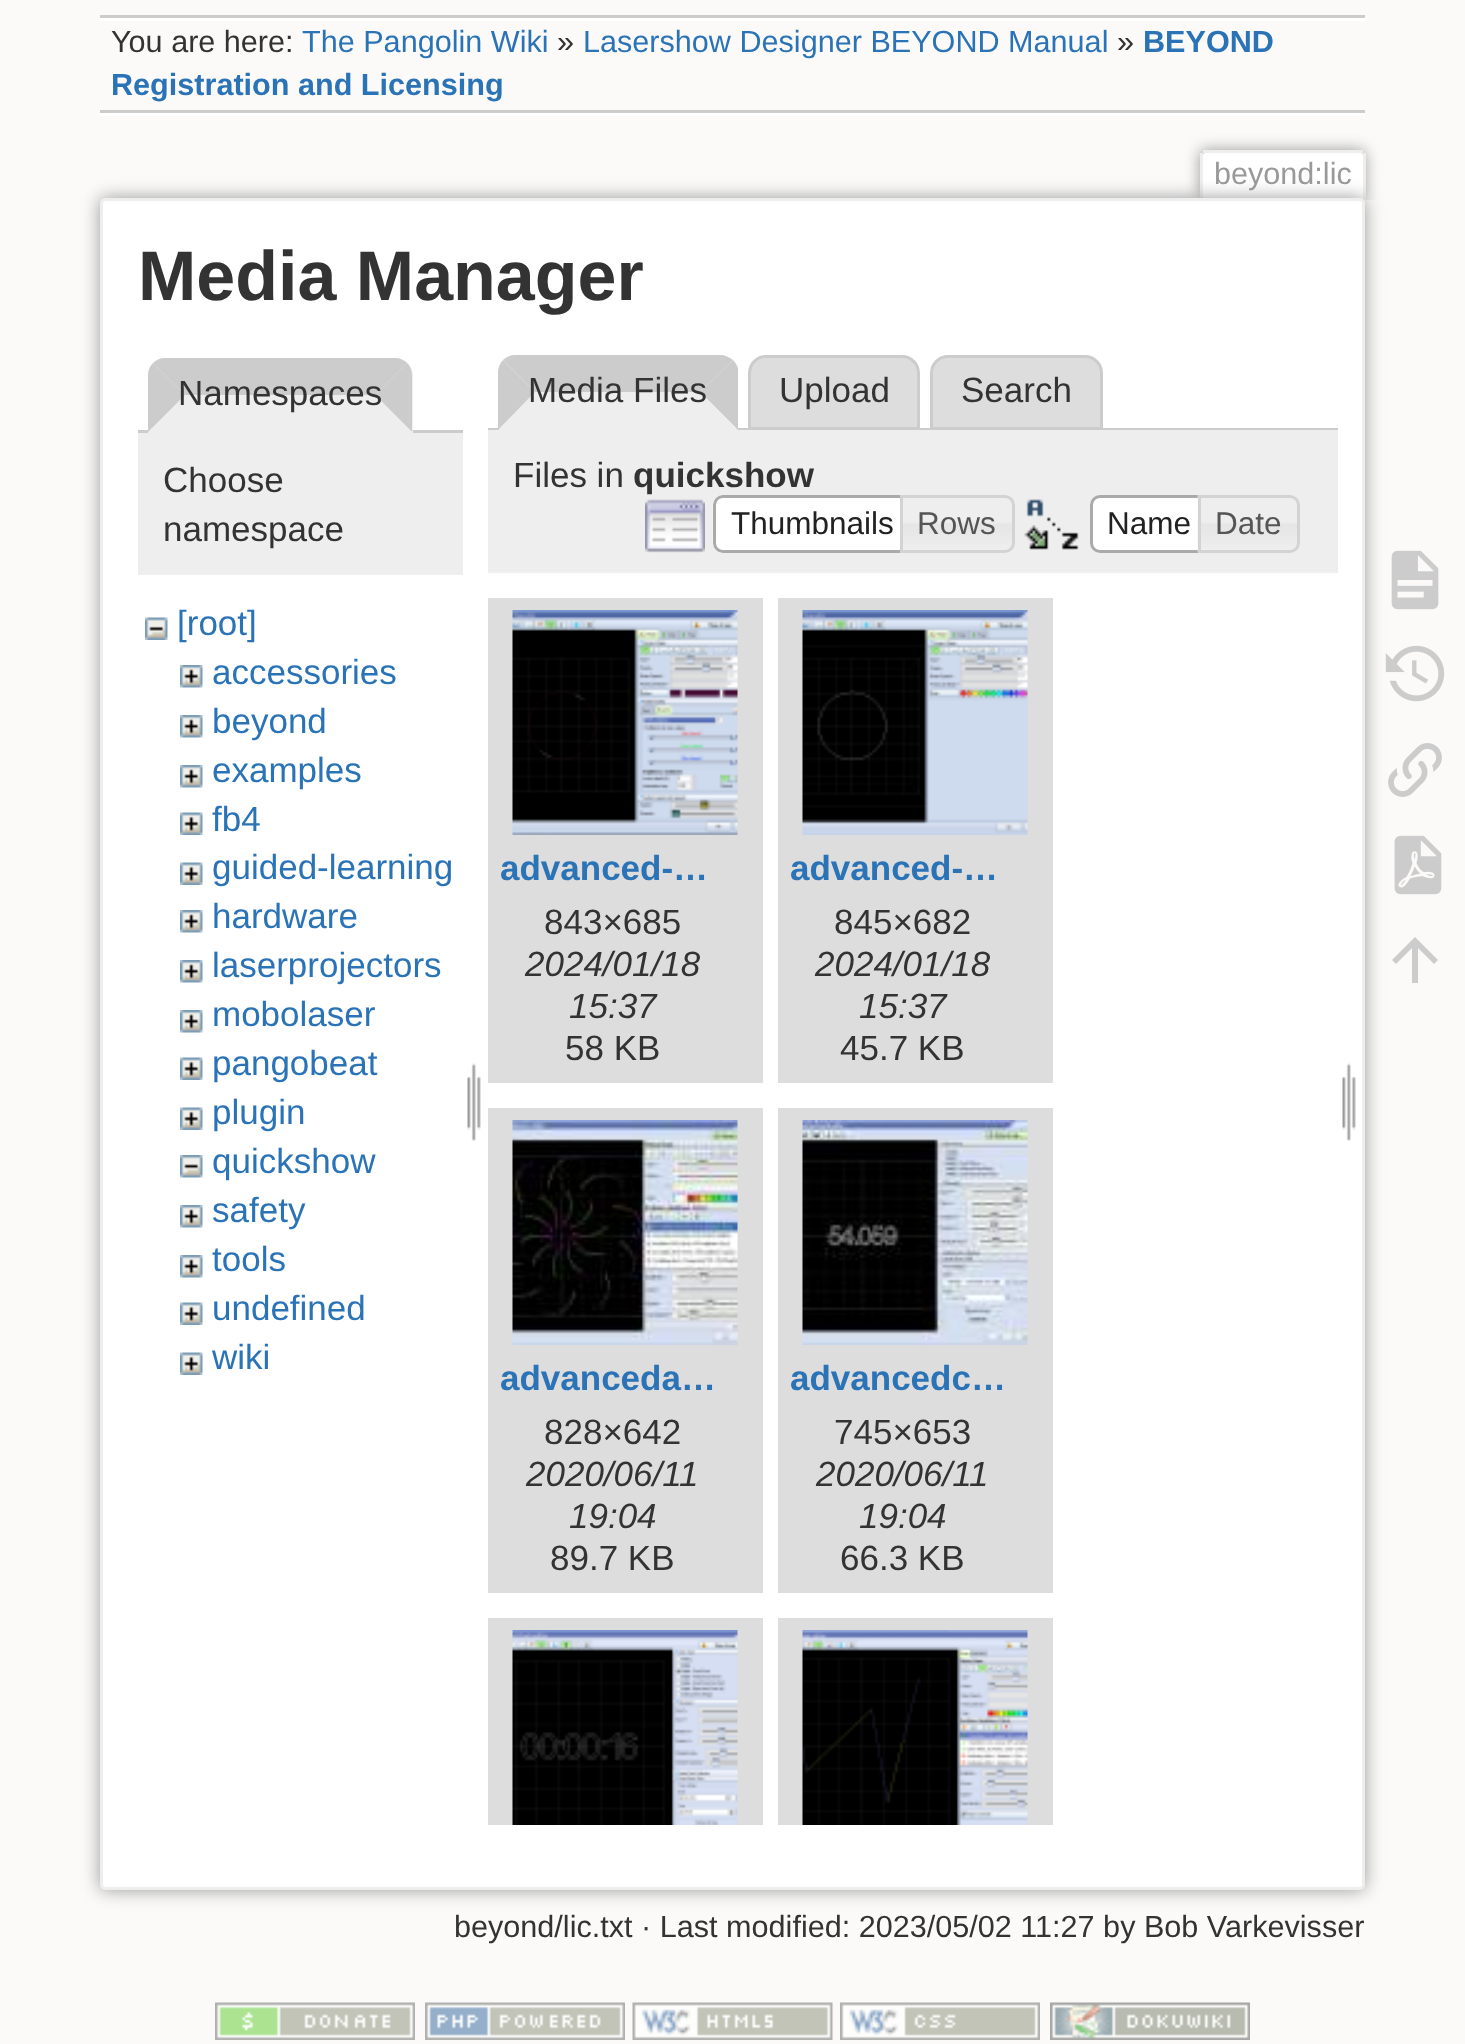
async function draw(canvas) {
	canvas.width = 1465;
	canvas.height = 2044;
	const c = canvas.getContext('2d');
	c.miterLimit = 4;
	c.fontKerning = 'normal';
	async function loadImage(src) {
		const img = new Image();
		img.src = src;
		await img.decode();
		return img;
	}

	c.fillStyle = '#fbfaf9';
	c.fillRect(0, 0, 1465, 2044);
	for (const [x, y, w, h, color] of [
		[100, 15, 1265, 3, '#ccc'],
		[100, 113, 1265, 3, '#fff'],
		[100, 18, 1265, 3, '#fff'],
		[100, 110, 1265, 3, '#ccc'],
	]) {
		c.fillStyle = color;
		c.fillRect(x, y, w, h);
	}
	c.font = '30.6px Liberation Sans';
	c.fillStyle = '#333';
	c.fillText('You are here:', 111, 52);
	c.fillStyle = '#2b73b7';
	c.fillText('The Pangolin Wiki', 302, 52);
	c.fillStyle = '#333';
	c.fillText('»', 557, 52);
	c.fillStyle = '#2b73b7';
	c.fillText('Lasershow Designer BEYOND Manual', 583, 52);
	c.fillStyle = '#333';
	c.fillText('»', 1117, 52);
	c.font = 'bold 30.6px Liberation Sans';
	c.fillStyle = '#2b73b7';
	c.fillText('BEYOND', 1143, 52);
	c.fillText('Registration and Licensing', 111, 95);
	c.save();
	c.beginPath();
	c.rect(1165, 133, 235, 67);
	c.clip();
	c.fillStyle = '#999';
	c.filter = 'blur(7.5px)';
	c.beginPath();
	c.roundRect(1200, 150, 165, 50, 5);
	c.fill();
	c.filter = 'none';
	c.restore();
	c.fillStyle = '#fff';
	c.beginPath();
	c.roundRect(1203, 153, 160, 47, [2.5, 2.5, 0, 0]);
	c.fill();
	for (const [x, y, w, h, color] of [
		[1203, 150, 160, 3, '#eee'],
		[1363, 153, 3, 47, '#eee'],
		[1200, 153, 3, 47, '#eee'],
	]) {
		c.fillStyle = color;
		c.fillRect(x, y, w, h);
	}
	c.font = '30.6px Liberation Sans';
	c.fillStyle = '#999';
	c.fillText('beyond:lic', 1214, 184);
	c.filter = 'blur(9px)';
	c.beginPath();
	c.roundRect(100, 198, 1265, 1692, 5);
	c.fill();
	c.filter = 'none';
	c.fillStyle = '#fff';
	c.beginPath();
	c.roundRect(101.5, 199.5, 1262, 1689, 3.5);
	c.fill();
	c.strokeStyle = '#eee';
	c.lineWidth = 3;
	c.stroke();
	c.font = 'bold 70px Liberation Sans';
	c.fillStyle = '#333';
	c.fillText('Media Manager', 138, 300);
	c.fillStyle = '#ccc';
	c.fillRect(138, 430, 325, 3);
	c.fillStyle = '#eee';
	c.beginPath();
	c.roundRect(148, 358, 265, 75, [18, 18, 0, 0]);
	c.fill();
	c.fillStyle = '#ccc';
	c.beginPath();
	c.moveTo(165, 358);
	c.bezierCurveTo(160, 358, 156, 360, 153, 363);
	c.lineTo(185, 395);
	c.lineTo(375, 395);
	c.lineTo(407, 363);
	c.bezierCurveTo(404, 360, 400, 358, 395, 358);
	c.closePath();
	c.fill();
	c.beginPath();
	c.moveTo(412, 432);
	c.lineTo(412, 375);
	c.bezierCurveTo(412, 370, 410, 366, 407, 363);
	c.lineTo(375, 395);
	c.closePath();
	c.fill();
	c.fillStyle = '#eee';
	c.beginPath();
	c.moveTo(412, 432);
	c.lineTo(375, 395);
	c.lineTo(185, 395);
	c.lineTo(148, 432);
	c.closePath();
	c.fill();
	c.fillStyle = '#ccc';
	c.beginPath();
	c.moveTo(153, 363);
	c.bezierCurveTo(150, 366, 148, 370, 148, 375);
	c.lineTo(148, 432);
	c.lineTo(185, 395);
	c.closePath();
	c.fill();
	c.font = '35px Liberation Sans';
	c.fillStyle = '#333';
	c.fillText('Namespaces', 178, 405);
	c.fillStyle = '#eee';
	c.fillRect(138, 433, 325, 142);
	c.fillStyle = '#333';
	c.fillText('Choose', 163, 492);
	c.fillText('namespace', 163, 541);
	c.drawImage(await loadImage('img1.png'), 145, 617, 23, 23);
	c.fillStyle = '#2b73b7';
	c.fillText('[root]', 177, 635);
	c.drawImage(await loadImage('img2.png'), 180, 665, 23, 23);
	c.fillText('accessories', 212, 684);
	c.drawImage(await loadImage('img2.png'), 180, 715, 23, 23);
	c.fillText('beyond', 212, 733);
	c.drawImage(await loadImage('img2.png'), 180, 765, 23, 23);
	c.fillText('examples', 212, 782);
	c.drawImage(await loadImage('img3.png'), 180, 812, 23, 23);
	c.fillText('fb4', 212, 831);
	c.drawImage(await loadImage('img4.png'), 180, 862, 23, 23);
	c.fillText('guided-learning', 212, 879);
	c.drawImage(await loadImage('img2.png'), 180, 910, 23, 23);
	c.fillText('hardware', 212, 928);
	c.drawImage(await loadImage('img2.png'), 180, 960, 23, 23);
	c.fillText('laserprojectors', 212, 977);
	c.drawImage(await loadImage('img2.png'), 180, 1010, 23, 23);
	c.fillText('mobolaser', 212, 1026);
	c.drawImage(await loadImage('img4.png'), 180, 1057, 23, 23);
	c.fillText('pangobeat', 212, 1075);
	c.drawImage(await loadImage('img4.png'), 180, 1107, 23, 23);
	c.fillText('plugin', 212, 1124);
	c.drawImage(await loadImage('img5.png'), 180, 1155, 23, 23);
	c.fillText('quickshow', 212, 1173);
	c.drawImage(await loadImage('img6.png'), 180, 1205, 23, 23);
	c.fillText('safety', 212, 1222);
	c.drawImage(await loadImage('img2.png'), 180, 1255, 23, 23);
	c.fillText('tools', 212, 1271);
	c.drawImage(await loadImage('img4.png'), 180, 1302, 23, 23);
	c.fillText('undefined', 212, 1320);
	c.drawImage(await loadImage('img4.png'), 180, 1352, 23, 23);
	c.fillText('wiki', 212, 1369);
	c.drawImage(await loadImage('img7.png'), 467, 1062, 14, 79);
	c.fillStyle = '#ccc';
	c.beginPath();
	c.moveTo(515, 355);
	c.lineTo(720, 355);
	c.bezierCurveTo(725, 355, 729, 357, 733, 360);
	c.lineTo(700, 392);
	c.lineTo(535, 392);
	c.lineTo(503, 360);
	c.bezierCurveTo(506, 357, 510, 355, 515, 355);
	c.closePath();
	c.fill();
	c.fillStyle = '#ddd';
	c.beginPath();
	c.roundRect(749.5, 356.5, 169, 72, [16.5, 16.5, 0, 0]);
	c.fill();
	c.strokeStyle = '#ccc';
	c.stroke();
	c.beginPath();
	c.roundRect(931.5, 356.5, 170, 72, [16.5, 16.5, 0, 0]);
	c.fill();
	c.stroke();
	c.fillStyle = '#ccc';
	c.fillRect(488, 428, 850, 2);
	c.beginPath();
	c.moveTo(733, 360);
	c.lineTo(700, 392);
	c.lineTo(738, 430);
	c.lineTo(738, 368);
	c.bezierCurveTo(737, 365, 735, 362, 733, 360);
	c.closePath();
	c.fill();
	c.fillStyle = '#eee';
	c.beginPath();
	c.moveTo(738, 430);
	c.lineTo(700, 392);
	c.lineTo(535, 392);
	c.lineTo(498, 430);
	c.closePath();
	c.fill();
	c.fillStyle = '#ccc';
	c.beginPath();
	c.moveTo(503, 360);
	c.bezierCurveTo(500, 363, 498, 368, 498, 372);
	c.lineTo(498, 430);
	c.lineTo(535, 392);
	c.closePath();
	c.fill();
	c.fillStyle = '#333';
	for (const [text, x, y] of [
		['Media Files', 528, 402],
		['Upload', 779, 402],
		['Search', 961, 402],
	]) {
		c.fillText(text, x, y);
	}
	c.fillStyle = '#eee';
	c.fillRect(488, 430, 850, 143);
	c.fillStyle = '#333';
	c.fillText('Files in', 513, 487);
	c.font = 'bold 35px Liberation Sans';
	c.fillText('quickshow', 633, 487);
	c.drawImage(await loadImage('img8.png'), 645, 499, 60, 54);
	c.fillStyle = '#fff';
	c.beginPath();
	c.roundRect(713, 495, 200, 58, [10, 0, 0, 10]);
	c.fill();
	c.drawImage(await loadImage('img9.png'), 712, 495, 8, 55);
	c.beginPath();
	c.roundRect(714.5, 496.5, 197, 55, [8.5, 0, 0, 8.5]);
	c.strokeStyle = '#aaa';
	c.stroke();
	c.font = '31.5px Liberation Sans';
	c.fillStyle = '#212121';
	c.fillText('Thumbnails', 731, 534);
	c.drawImage(await loadImage('img10.png'), 903, 495, 112, 57);
	c.beginPath();
	c.roundRect(901.5, 496.5, 112, 55, [0, 8.5, 8.5, 0]);
	c.strokeStyle = '#d3d3d3';
	c.stroke();
	c.fillStyle = '#555';
	c.fillText('Rows', 917, 534);
	c.drawImage(await loadImage('img11.png'), 1024, 499, 55, 51);
	c.fillStyle = '#fff';
	c.beginPath();
	c.roundRect(1091.5, 496.5, 117, 55, [8.5, 0, 0, 8.5]);
	c.fill();
	c.strokeStyle = '#aaa';
	c.stroke();
	c.fillStyle = '#212121';
	c.fillText('Name', 1107, 534);
	c.drawImage(await loadImage('img12.png'), 1197, 495, 103, 58);
	c.beginPath();
	c.roundRect(1199.5, 496.5, 99, 55, [0, 8.5, 8.5, 0]);
	c.strokeStyle = '#d3d3d3';
	c.stroke();
	c.fillStyle = '#555';
	c.fillText('Date', 1215, 534);
	c.fillStyle = '#ddd';
	c.fillRect(488, 598, 275, 485);
	c.drawImage(await loadImage('img13.png'), 512, 610, 226, 225);
	c.font = 'bold 35px Liberation Sans';
	c.fillStyle = '#2b73b7';
	c.fillText('advanced-…', 500, 880);
	c.font = '35px Liberation Sans';
	c.fillStyle = '#333';
	c.fillText('843×685', 544, 934);
	c.font = 'italic 35px Liberation Sans';
	c.fillText('2024/01/18', 525, 976);
	c.fillText('15:37', 569, 1018);
	c.font = '35px Liberation Sans';
	c.fillText('58 KB', 565, 1060);
	c.fillStyle = '#ddd';
	c.fillRect(778, 598, 275, 485);
	c.drawImage(await loadImage('img14.png'), 802, 610, 226, 225);
	c.font = 'bold 35px Liberation Sans';
	c.fillStyle = '#2b73b7';
	c.fillText('advanced-…', 790, 880);
	c.font = '35px Liberation Sans';
	c.fillStyle = '#333';
	c.fillText('845×682', 834, 934);
	c.font = 'italic 35px Liberation Sans';
	c.fillText('2024/01/18', 815, 976);
	c.fillText('15:37', 859, 1018);
	c.font = '35px Liberation Sans';
	c.fillText('45.7 KB', 840, 1060);
	c.fillStyle = '#ddd';
	c.fillRect(488, 1108, 275, 485);
	c.drawImage(await loadImage('img15.png'), 512, 1120, 226, 225);
	c.font = 'bold 35px Liberation Sans';
	c.fillStyle = '#2b73b7';
	c.fillText('advanceda…', 500, 1390);
	c.font = '35px Liberation Sans';
	c.fillStyle = '#333';
	c.fillText('828×642', 544, 1444);
	c.font = 'italic 35px Liberation Sans';
	c.fillText('2020/06/11', 526, 1486);
	c.fillText('19:04', 569, 1528);
	c.font = '35px Liberation Sans';
	c.fillText('89.7 KB', 550, 1570);
	c.fillStyle = '#ddd';
	c.fillRect(778, 1108, 275, 485);
	c.drawImage(await loadImage('img16.png'), 802, 1120, 226, 225);
	c.font = 'bold 35px Liberation Sans';
	c.fillStyle = '#2b73b7';
	c.fillText('advancedc…', 790, 1390);
	c.font = '35px Liberation Sans';
	c.fillStyle = '#333';
	c.fillText('745×653', 834, 1444);
	c.font = 'italic 35px Liberation Sans';
	c.fillText('2020/06/11', 816, 1486);
	c.fillText('19:04', 859, 1528);
	c.font = '35px Liberation Sans';
	c.fillText('66.3 KB', 840, 1570);
	c.fillStyle = '#ddd';
	c.fillRect(488, 1618, 275, 207);
	c.drawImage(await loadImage('img17.png'), 512, 1630, 226, 195);
	c.fillRect(778, 1618, 275, 207);
	c.drawImage(await loadImage('img18.png'), 802, 1630, 226, 195);
	c.drawImage(await loadImage('img19.png'), 1342, 1062, 14, 79);
	c.font = '30.6px Liberation Sans';
	c.fillStyle = '#333';
	c.fillText('beyond/lic.txt · Last modified: 2023/05/02 11:27 by Bob Varkevisser', 454, 1937);
	c.drawImage(await loadImage('img20.png'), 1391, 550, 48, 60);
	c.drawImage(await loadImage('img21.png'), 1385, 645, 60, 57);
	c.drawImage(await loadImage('img22.png'), 1388, 743, 54, 54);
	c.drawImage(await loadImage('img23.png'), 1394, 835, 48, 60);
	c.fillStyle = '#ccc';
	c.beginPath();
	c.moveTo(1418, 983);
	c.lineTo(1412, 983);
	c.lineTo(1412, 948);
	c.lineTo(1396, 964);
	c.lineTo(1392, 960);
	c.lineTo(1415, 937);
	c.lineTo(1438, 960);
	c.lineTo(1434, 964);
	c.lineTo(1418, 948);
	c.closePath();
	c.fill();
	c.drawImage(await loadImage('img24.png'), 215, 2002, 200, 38);
	c.drawImage(await loadImage('img25.png'), 425, 2002, 200, 38);
	c.drawImage(await loadImage('img26.png'), 632, 2002, 201, 38);
	c.drawImage(await loadImage('img27.png'), 840, 2002, 200, 38);
	c.drawImage(await loadImage('img28.png'), 1050, 2002, 200, 38);
}

draw(document.querySelector('canvas'));
